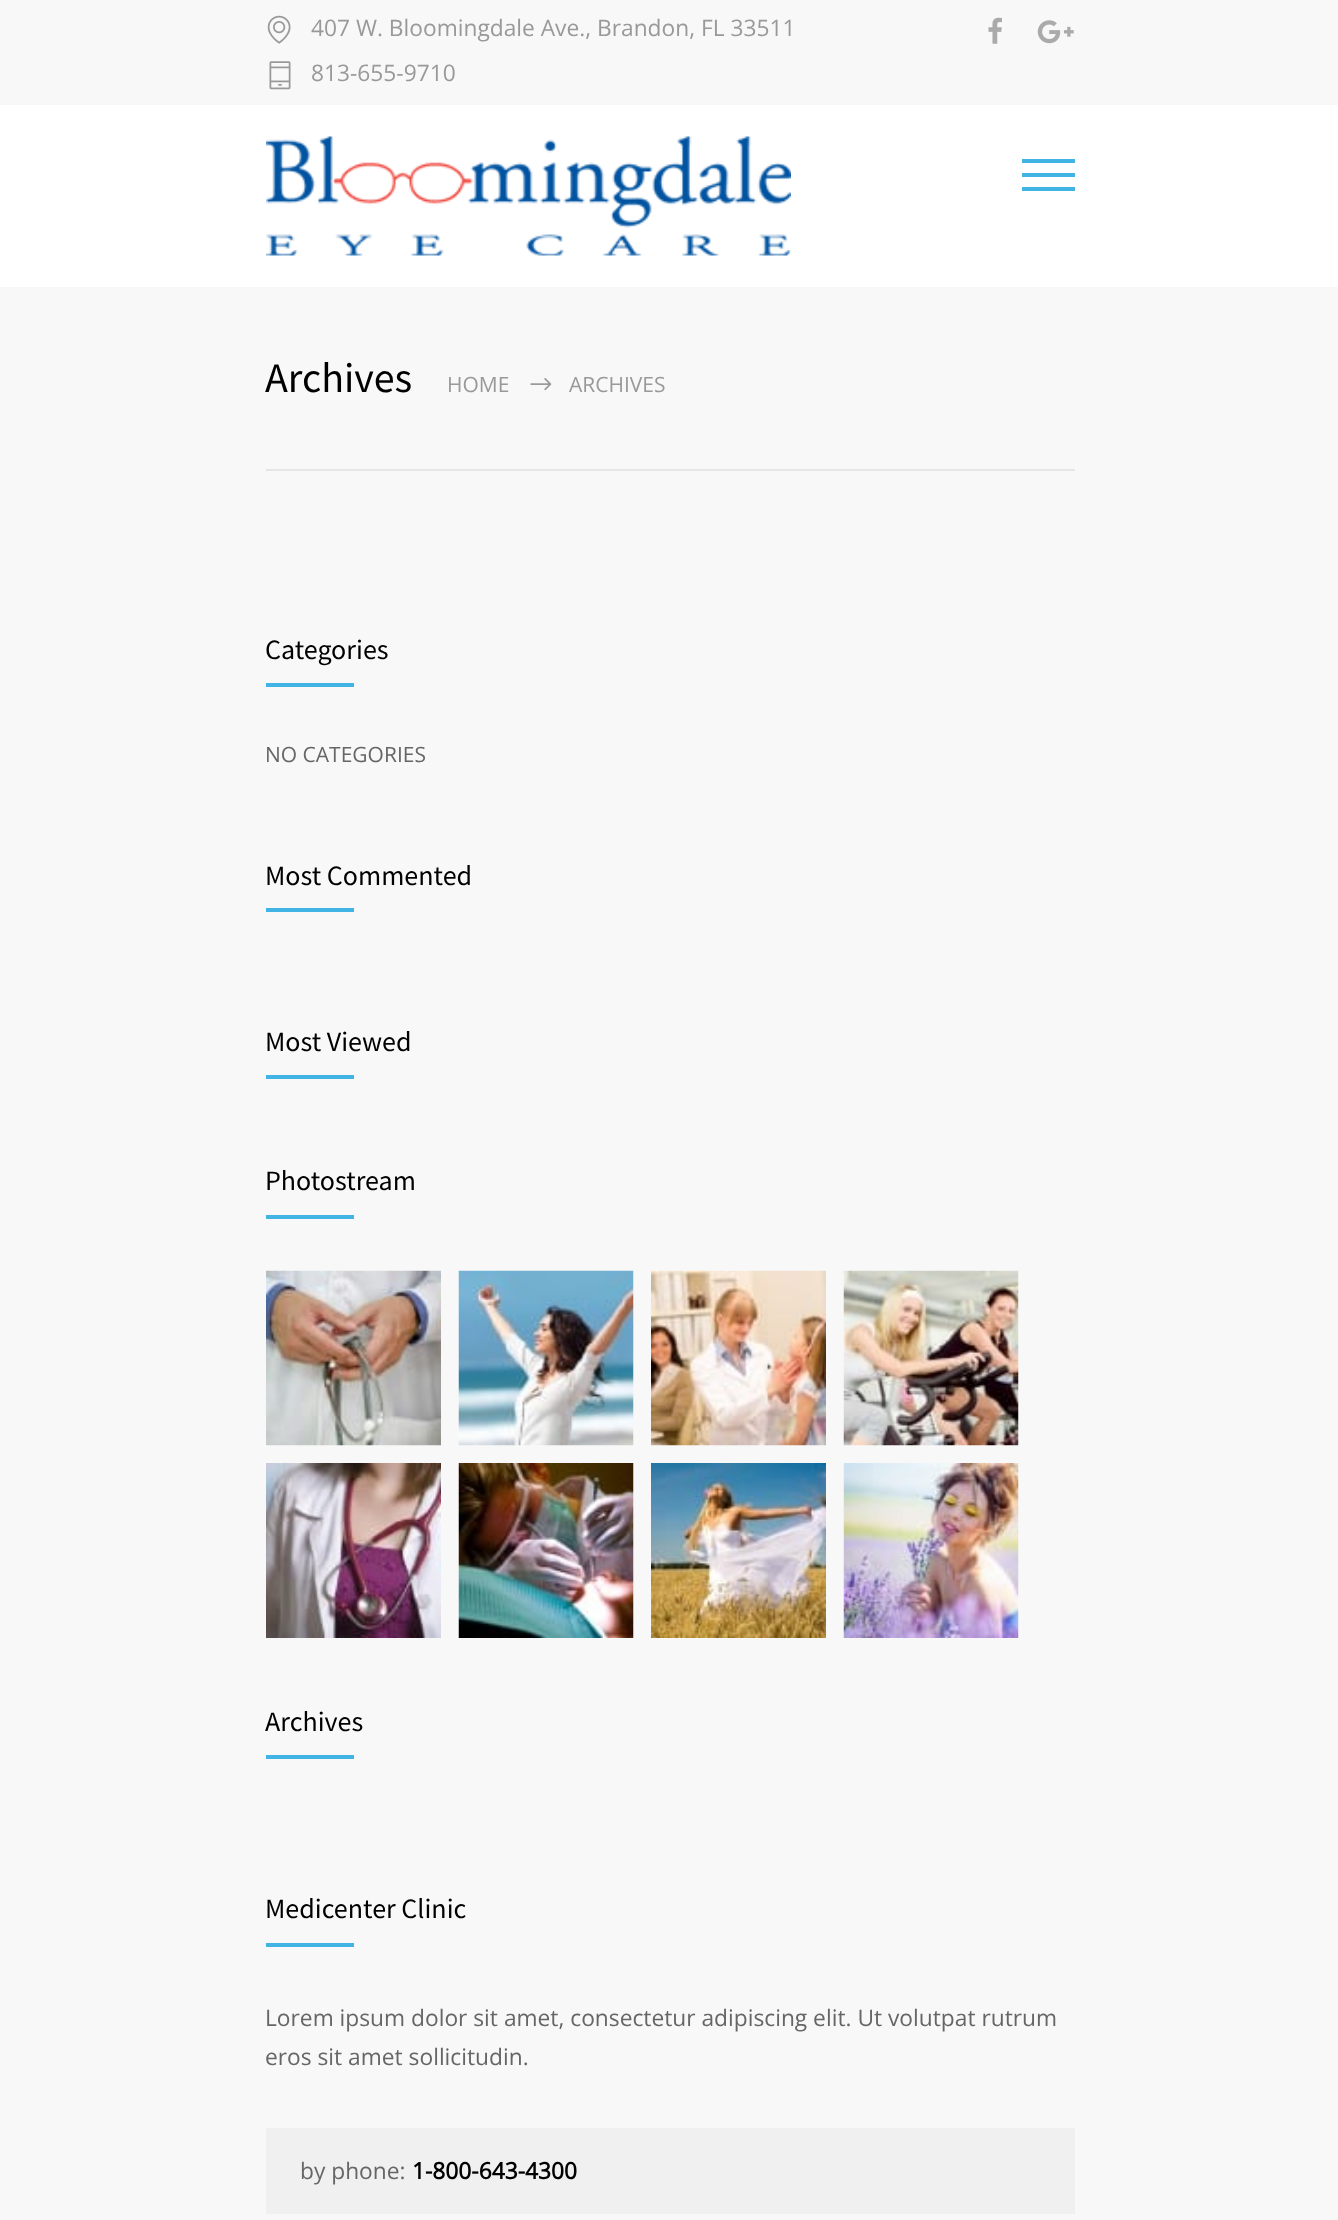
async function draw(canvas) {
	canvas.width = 1338;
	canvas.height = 2220;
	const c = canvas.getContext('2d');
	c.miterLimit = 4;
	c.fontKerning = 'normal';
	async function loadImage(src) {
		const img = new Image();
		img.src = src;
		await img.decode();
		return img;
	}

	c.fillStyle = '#f8f8f8';
	c.fillRect(0, 0, 1338, 2220);
	c.drawImage(await loadImage('img1.png'), 267, 15, 24, 29);
	c.font = '22.75px Open Sans';
	c.fillStyle = '#999';
	c.fillText('407 W. Bloomingdale Ave., Brandon, FL 33511', 311, 36);
	c.drawImage(await loadImage('img2.png'), 269, 61, 22, 29);
	c.fillText('813-655-9710', 311, 81);
	c.drawImage(await loadImage('img3.png'), 988, 17, 14, 27);
	c.drawImage(await loadImage('img4.png'), 1037, 20, 37, 24);
	c.fillStyle = '#fff';
	c.fillRect(0, 105, 1338, 182);
	c.drawImage(await loadImage('img5.png'), 266, 136, 525, 120);
	for (const [x, y, w, h, color] of [
		[1022, 159, 53, 4, '#42b3e5'],
		[1022, 173, 53, 4, '#42b3e5'],
		[1022, 187, 53, 4, '#42b3e5'],
		[266, 469, 809, 2, '#e5e5e5'],
	]) {
		c.fillStyle = color;
		c.fillRect(x, y, w, h);
	}
	c.font = '42px Source Sans Pro';
	c.fillStyle = '#000';
	c.fillText('Archives', 265, 392);
	c.font = '21px Open Sans';
	c.fillStyle = '#999';
	c.fillText('HOME', 447, 392);
	c.drawImage(await loadImage('img6.png'), 530, 378, 22, 13);
	c.fillText('ARCHIVES', 569, 392);
	c.font = '28px Source Sans Pro';
	c.fillStyle = '#000';
	c.fillText('Categories', 265, 659);
	c.fillStyle = '#42b3e5';
	c.fillRect(266, 683, 88, 4);
	c.font = '21px Open Sans';
	c.fillStyle = '#666';
	c.fillText('NO CATEGORIES', 265, 762);
	c.font = '28px Source Sans Pro';
	c.fillStyle = '#000';
	c.fillText('Most Commented', 265, 885);
	c.fillStyle = '#42b3e5';
	c.fillRect(266, 908, 88, 4);
	c.fillStyle = '#000';
	c.fillText('Most Viewed', 265, 1051);
	c.fillStyle = '#42b3e5';
	c.fillRect(266, 1075, 88, 4);
	c.fillStyle = '#000';
	c.fillText('Photostream', 265, 1190);
	c.fillStyle = '#42b3e5';
	c.fillRect(266, 1215, 88, 4);
	c.drawImage(await loadImage('img7.png'), 266, 1270, 175, 176);
	c.drawImage(await loadImage('img8.png'), 458, 1270, 176, 176);
	c.drawImage(await loadImage('img9.png'), 651, 1270, 175, 176);
	c.drawImage(await loadImage('img10.png'), 843, 1270, 176, 176);
	c.drawImage(await loadImage('img11.png'), 266, 1463, 175, 175);
	c.drawImage(await loadImage('img12.png'), 458, 1463, 176, 175);
	c.drawImage(await loadImage('img13.png'), 651, 1463, 175, 175);
	c.drawImage(await loadImage('img14.png'), 843, 1463, 176, 175);
	c.fillStyle = '#000';
	c.fillText('Archives', 265, 1731);
	c.fillStyle = '#42b3e5';
	c.fillRect(266, 1755, 88, 4);
	c.fillStyle = '#000';
	c.fillText('Medicenter Clinic', 265, 1918);
	c.fillStyle = '#42b3e5';
	c.fillRect(266, 1943, 88, 4);
	c.font = '22.75px Open Sans';
	c.fillStyle = '#666';
	c.fillText('Lorem ipsum dolor sit amet, consectetur adipiscing elit. Ut volutpat rutrum', 265, 2026);
	c.fillText('eros sit amet sollicitudin.', 265, 2065);
	c.fillStyle = '#f0f0f0';
	c.fillRect(266, 2128, 809, 86);
	c.fillStyle = '#666';
	c.fillText('by phone:', 300, 2179);
	c.font = 'bold 22.75px Open Sans';
	c.fillStyle = '#000';
	c.fillText('1-800-643-4300', 412, 2179);
}

draw(document.querySelector('canvas'));
